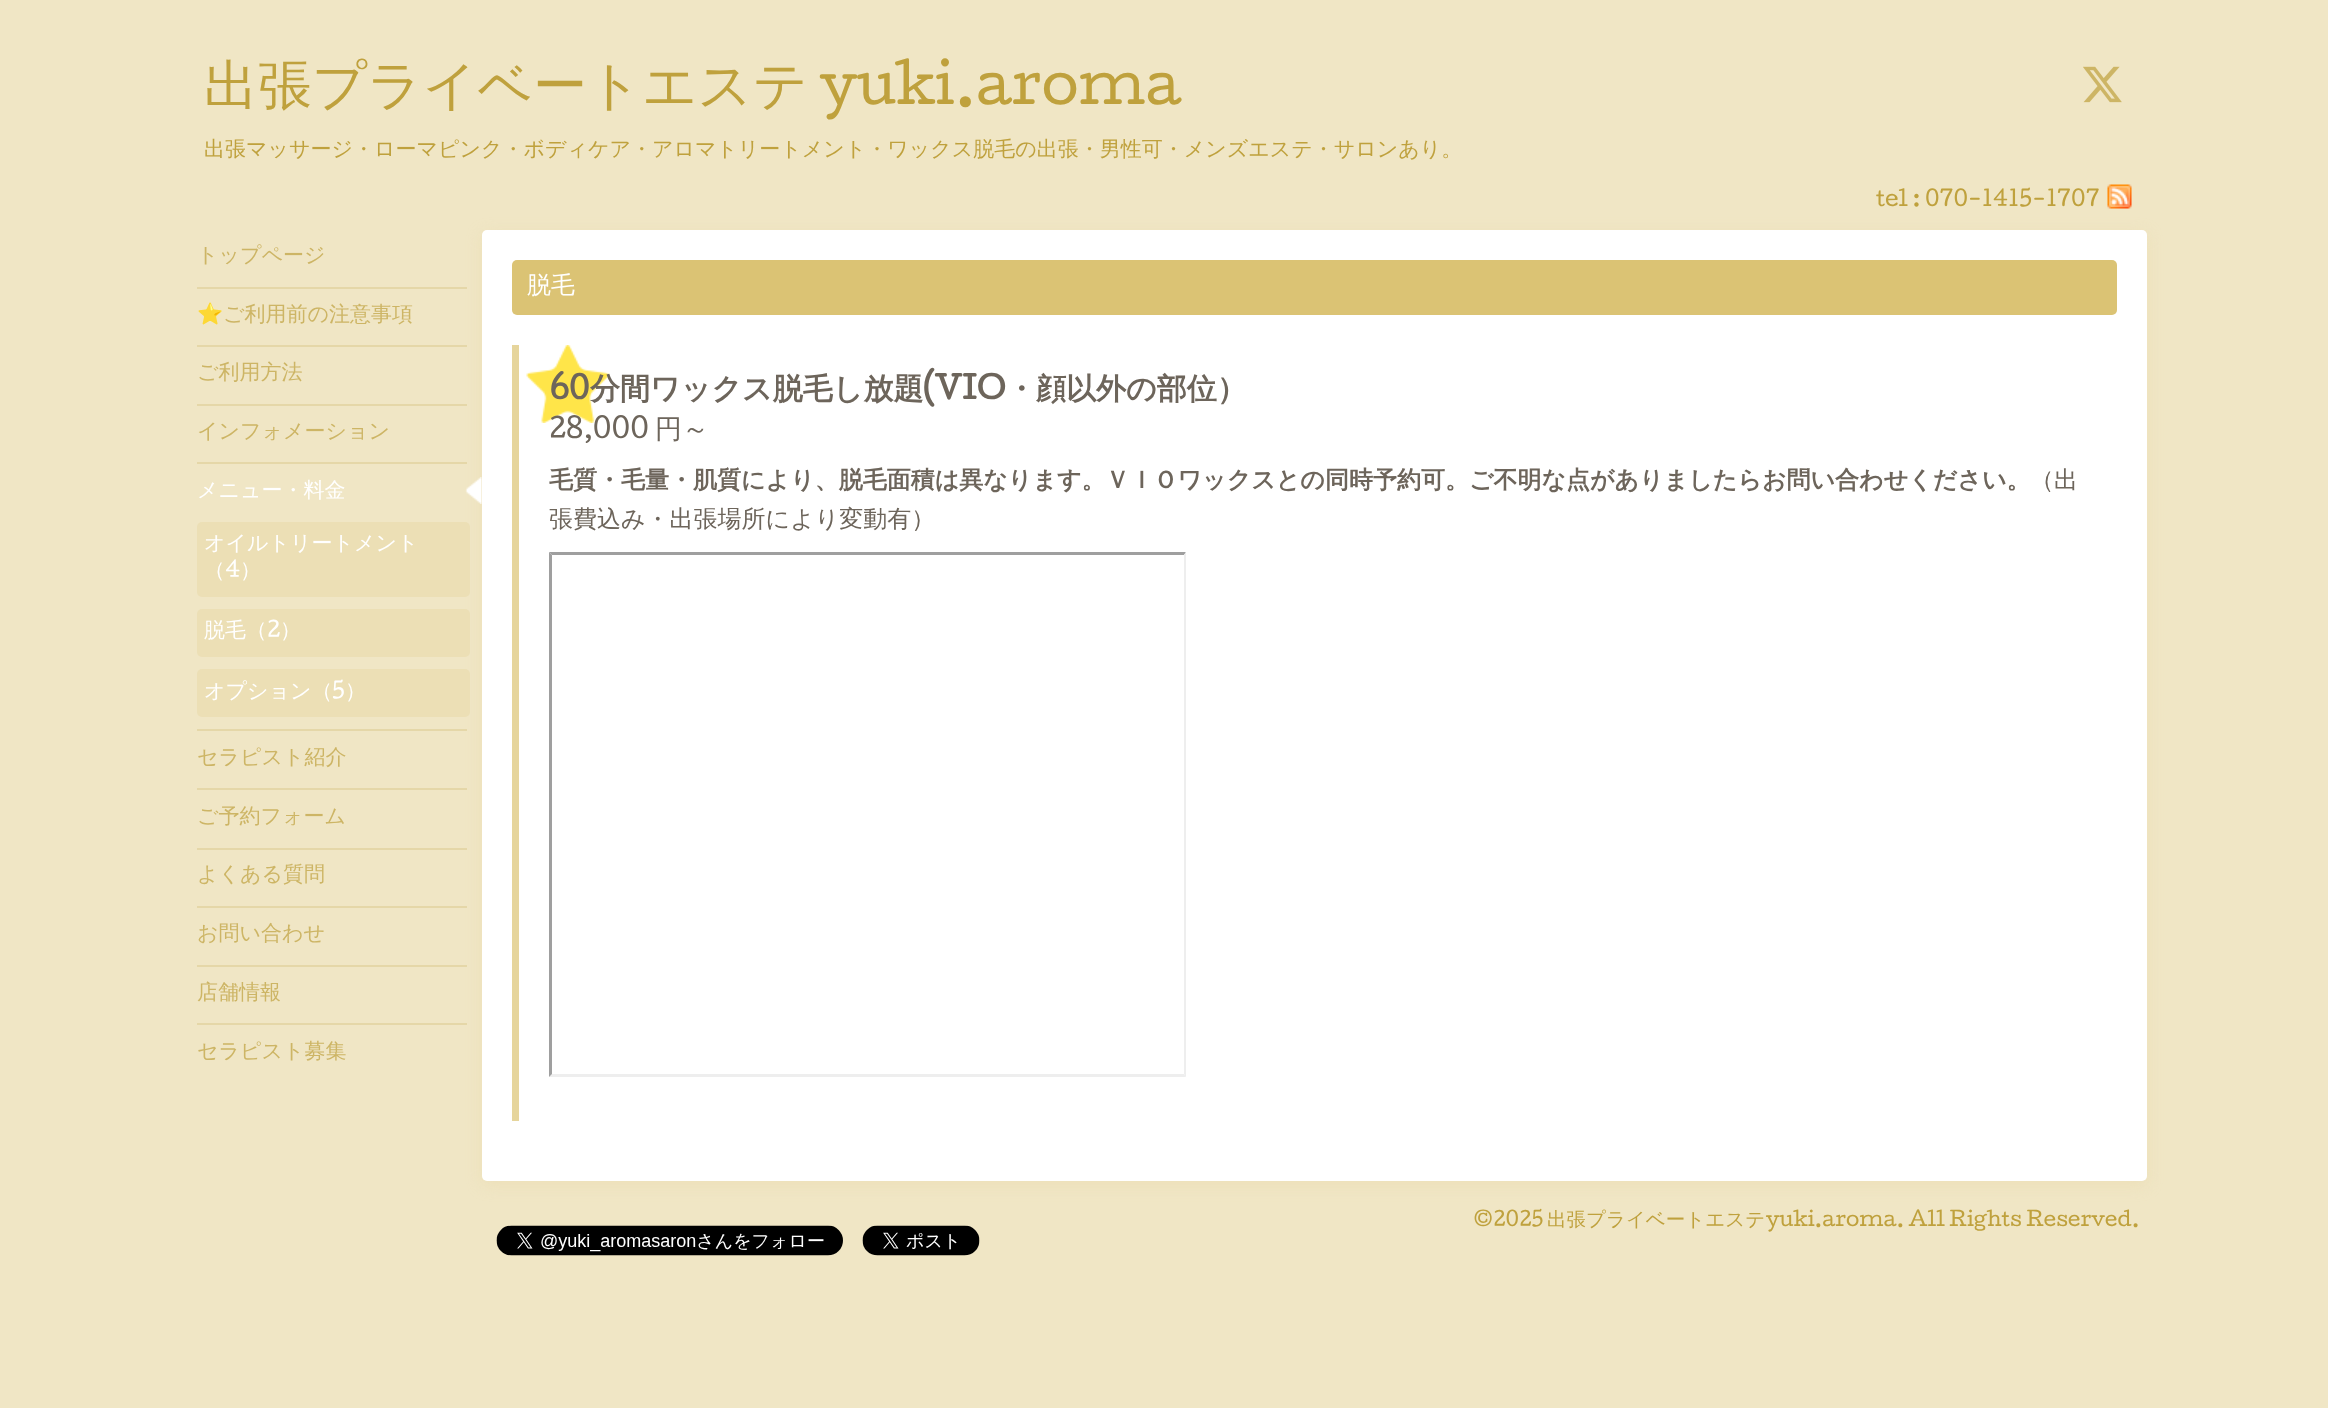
async function draw(canvas) {
	canvas.width = 2328;
	canvas.height = 1408;
	const c = canvas.getContext('2d');
	c.miterLimit = 4;
	c.fontKerning = 'none';
	async function loadImage(src) {
		const img = new Image();
		img.src = src;
		await img.decode();
		return img;
	}

	c.fillStyle = '#f0e6c5';
	c.fillRect(0, 0, 2328, 1408);
	c.font = '500 54px WenQuanYi Zen Hei';
	c.fillStyle = '#bfa13d';
	c.fillText('出張プライベートエステ', 204, 104);
	c.font = '54px Cutive';
	c.fillText('yuki.aroma', 820, 104);
	c.drawImage(await loadImage('img1.png'), 2083, 66, 39, 37);
	c.font = '500 21px WenQuanYi Zen Hei';
	c.fillText('出張マッサージ・ローマピンク・ボディケア・アロマトリートメント・ワックス脱毛の出張・男性可・メンズエステ・サロンあり。', 204, 156);
	c.font = '21px Cutive';
	c.fillText('tel : 070-1415-1707', 1876, 206);
	c.drawImage(await loadImage('img2.png'), 2107, 184, 25, 25);
	c.font = '500 21px WenQuanYi Zen Hei';
	c.fillStyle = '#cdb565';
	c.fillText('トップページ', 197, 262);
	c.fillStyle = '#e8d8a566';
	c.filter = 'blur(7.5px)';
	c.beginPath();
	c.roundRect(482, 234, 1665, 951, 5);
	c.fill();
	c.filter = 'none';
	c.fillStyle = '#e5d7a8';
	c.fillRect(197, 287, 270, 2);
	c.font = '21px Noto Color Emoji';
	c.fillStyle = '#cdb565';
	c.fillText('⭐', 197, 321);
	c.font = '500 21px WenQuanYi Zen Hei';
	c.fillText('ご利用前の注意事項', 223, 321);
	c.fillStyle = '#e5d7a8';
	c.fillRect(197, 345, 270, 2);
	c.fillStyle = '#cdb565';
	c.fillText('ご利用方法', 197, 379);
	c.fillStyle = '#e5d7a8';
	c.fillRect(197, 404, 270, 2);
	c.fillStyle = '#cdb565';
	c.fillText('インフォメーション', 197, 438);
	c.drawImage(await loadImage('img3.png'), 465, 477, 17, 27);
	c.fillStyle = '#e5d7a8';
	c.fillRect(197, 462, 270, 2);
	c.fillStyle = '#fff';
	c.fillText('メニュー・料金', 197, 497);
	c.fillStyle = '#ecdfb5';
	c.beginPath();
	c.roundRect(197, 522, 273, 75, 5);
	c.fill();
	c.fillStyle = '#fff';
	c.fillText('オイルトリートメント', 204, 550);
	c.fillText('（', 204, 577);
	c.font = '21px Cutive';
	c.fillText('4', 225, 577);
	c.font = '500 21px WenQuanYi Zen Hei';
	c.fillText('）', 240, 577);
	c.fillStyle = '#ecdfb5';
	c.beginPath();
	c.roundRect(197, 609, 273, 48, 5);
	c.fill();
	c.fillStyle = '#fff';
	c.fillText('脱毛（', 204, 637);
	c.font = '21px Cutive';
	c.fillText('2', 267, 637);
	c.font = '500 21px WenQuanYi Zen Hei';
	c.fillText('）', 280, 637);
	c.fillStyle = '#ecdfb5';
	c.beginPath();
	c.roundRect(197, 669, 273, 48, 5);
	c.fill();
	c.fillStyle = '#fff';
	c.fillText('オプション（', 204, 698);
	c.font = '21px Cutive';
	c.fillText('5', 332, 698);
	c.font = '500 21px WenQuanYi Zen Hei';
	c.fillText('）', 345, 698);
	c.fillStyle = '#e5d7a8';
	c.fillRect(197, 729, 270, 2);
	c.fillStyle = '#cdb565';
	c.fillText('セラピスト紹介', 197, 764);
	c.fillStyle = '#e5d7a8';
	c.fillRect(197, 788, 270, 2);
	c.fillStyle = '#cdb565';
	c.fillText('ご予約フォーム', 197, 823);
	c.fillStyle = '#e5d7a8';
	c.fillRect(197, 848, 270, 2);
	c.fillStyle = '#cdb565';
	c.fillText('よくある質問', 197, 881);
	c.fillStyle = '#e5d7a8';
	c.fillRect(197, 906, 270, 2);
	c.fillStyle = '#cdb565';
	c.fillText('お問い合わせ', 197, 940);
	c.fillStyle = '#e5d7a8';
	c.fillRect(197, 965, 270, 2);
	c.fillStyle = '#cdb565';
	c.fillText('店舗情報', 197, 999);
	c.fillStyle = '#e5d7a8';
	c.fillRect(197, 1023, 270, 2);
	c.fillStyle = '#cdb565';
	c.fillText('セラピスト募集', 197, 1058);
	c.fillStyle = '#fff';
	c.beginPath();
	c.roundRect(482, 230, 1665, 951, 5);
	c.fill();
	c.fillStyle = '#dbc374';
	c.beginPath();
	c.roundRect(512, 260, 1605, 55, 5);
	c.fill();
	c.font = '500 24px WenQuanYi Zen Hei';
	c.fillStyle = '#fff';
	c.fillText('脱毛', 527, 293);
	c.fillStyle = '#e6d59c';
	c.fillRect(512, 345, 7, 776);
	c.drawImage(await loadImage('img4.png'), 526, 345, 83, 78);
	c.font = 'bold 30px Cutive';
	c.fillStyle = '#6d655b';
	c.fillText('(VIO', 923, 399);
	c.fillText('60', 549, 399);
	c.font = 'bold 30px WenQuanYi Zen Hei';
	c.fillText('分間ワックス脱毛し放題', 590, 399);
	c.fillText('・顔以外の部位）', 1006, 399);
	c.font = '27px Cutive';
	c.fillText('28,000', 549, 438);
	c.font = '500 27px WenQuanYi Zen Hei';
	c.fillText('円～', 655, 438);
	c.font = 'bold 24px WenQuanYi Zen Hei';
	c.fillText('毛質・毛量・肌質により、脱毛面積は異なります。ＶＩＯワックスとの同時予約可。ご不明な点がありましたらお問い合わせください。', 549, 488);
	c.font = '500 24px WenQuanYi Zen Hei';
	c.fillText('（出', 2030, 488);
	c.fillText('張費込み・出張場所により変動有）', 549, 527);
	c.fillStyle = '#9f9f9f';
	c.beginPath();
	c.moveTo(549, 552);
	c.lineTo(1186, 552);
	c.lineTo(1184, 555);
	c.lineTo(552, 555);
	c.closePath();
	c.fill();
	c.fillStyle = '#eee';
	c.beginPath();
	c.moveTo(1186, 552);
	c.lineTo(1186, 1077);
	c.lineTo(1184, 1074);
	c.lineTo(1184, 555);
	c.closePath();
	c.fill();
	c.beginPath();
	c.moveTo(1186, 1077);
	c.lineTo(549, 1077);
	c.lineTo(552, 1074);
	c.lineTo(1184, 1074);
	c.closePath();
	c.fill();
	c.fillStyle = '#9f9f9f';
	c.beginPath();
	c.moveTo(549, 1077);
	c.lineTo(549, 552);
	c.lineTo(552, 555);
	c.lineTo(552, 1074);
	c.closePath();
	c.fill();
	c.font = '19.5px Cutive';
	c.fillStyle = '#bfa13d';
	c.fillText('©2025', 1473, 1226);
	c.font = '500 19.5px WenQuanYi Zen Hei';
	c.fillText('出張プライベートエステ', 1547, 1226);
	c.font = '19.5px Cutive';
	c.fillText('yuki.aroma. All Rights Reserved.', 1766, 1226);
	c.drawImage(await loadImage('img5.png'), 496, 1225, 347, 31);
	c.drawImage(await loadImage('img6.png'), 862, 1225, 118, 31);
}

draw(document.querySelector('canvas'));
